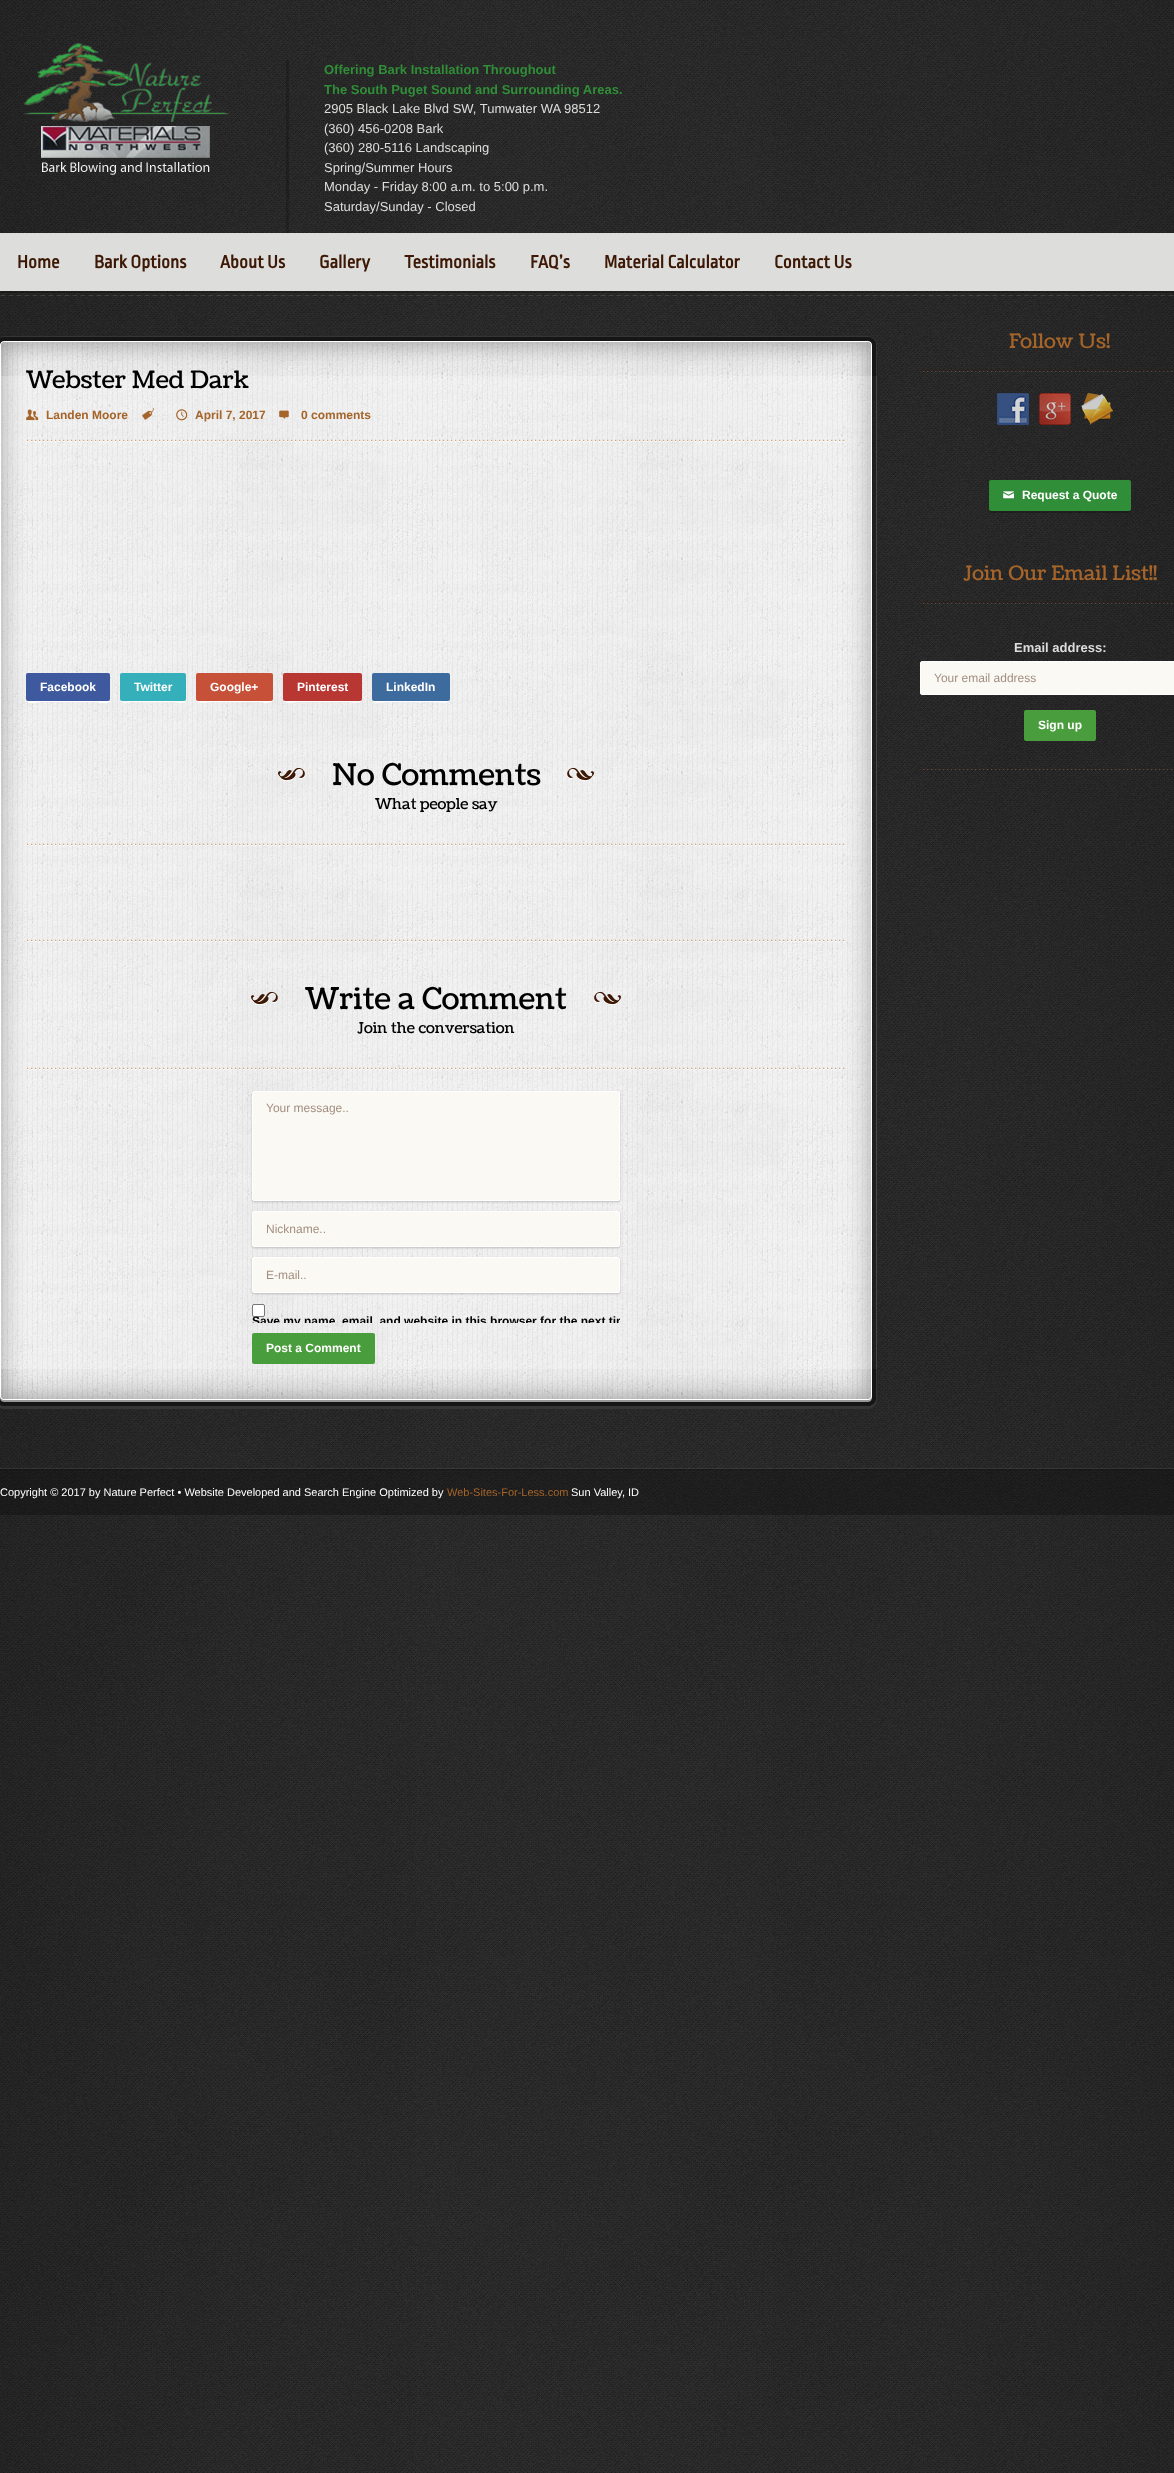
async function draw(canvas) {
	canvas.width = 1174;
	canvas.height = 2473;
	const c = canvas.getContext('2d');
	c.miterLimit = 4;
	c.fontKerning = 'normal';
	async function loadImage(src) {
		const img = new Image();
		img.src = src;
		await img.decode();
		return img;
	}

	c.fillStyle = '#fff';
	c.fillRect(0, 0, 1174, 2473);
	c.drawImage(await loadImage('img1.png'), 0, 0, 1174, 2473);
	c.drawImage(await loadImage('img2.png'), 0, 0, 1174, 2473);
	c.drawImage(await loadImage('img3.png'), 24, 43, 205, 132);
	c.fillStyle = '#00000033';
	c.fillRect(286, 60, 3, 173);
	c.font = 'bold 13px Liberation Sans';
	c.fillStyle = '#308e38';
	c.fillText('Offering Bark Installation Throughout', 324, 74);
	c.fillText('The South Puget Sound and Surrounding Areas.', 324, 94);
	c.font = '13px Liberation Sans';
	c.fillStyle = '#dddddc';
	for (const [text, x, y] of [
		['2905 Black Lake Blvd SW, Tumwater WA 98512', 324, 113],
		['(360) 456-0208 Bark', 324, 133],
		['(360) 280-5116 Landscaping', 324, 152],
		['Spring/Summer Hours', 324, 172],
		['Monday - Friday 8:00 a.m. to 5:00 p.m.', 324, 191],
		['Saturday/Sunday - Closed', 324, 211],
	]) {
		c.fillText(text, x, y);
	}
	c.fillStyle = '#00000033';
	c.fillRect(0, 291, 1174, 2);
	c.fillStyle = '#dddddc';
	c.fillRect(0, 233, 1174, 58);
	c.font = 'bold 19px Ropa Sans';
	c.fillStyle = '#3c1805';
	for (const [text, x, y] of [
		['Home', 17, 268],
		['Bark Options', 94, 268],
		['About Us', 220, 268],
		['Gallery', 319, 268],
		['Testimonials', 404, 268],
		['FAQ’s', 530, 268],
		['Material Calculator', 604, 268],
		['Contact Us', 774, 268],
	]) {
		c.fillText(text, x, y);
	}
	c.drawImage(await loadImage('img4.png'), 0, 295, 1174, 1);
	c.drawImage(await loadImage('img5.png'), 0, 376, 877, 993);
	c.drawImage(await loadImage('img6.png'), 0, 336, 877, 40);
	c.font = '24px Coustard';
	c.fillStyle = '#000';
	c.fillText('Webster Med Dark', 26, 388);
	c.drawImage(await loadImage('img7.png'), 27, 439, 818, 3);
	c.drawImage(await loadImage('img8.png'), 26, 409, 13, 12);
	c.font = 'bold 12px Liberation Sans';
	c.fillStyle = '#a56429';
	c.fillText('Landen Moore', 46, 419);
	c.drawImage(await loadImage('img9.png'), 142, 407, 12, 13);
	c.drawImage(await loadImage('img10.png'), 176, 409, 12, 12);
	c.fillText('April 7, 2017', 195, 419);
	c.drawImage(await loadImage('img11.png'), 279, 410, 10, 9);
	c.fillText('0 comments', 301, 419);
	c.fillStyle = '#fff';
	c.beginPath();
	c.moveTo(26, 699);
	c.bezierCurveTo(26, 706, 39, 702, 41, 702);
	c.lineTo(95, 702);
	c.bezierCurveTo(97, 702, 110, 706, 110, 699);
	c.bezierCurveTo(110, 700, 109, 701, 108, 701);
	c.lineTo(27, 701);
	c.closePath();
	c.fill();
	c.fillStyle = '#3e599e';
	c.beginPath();
	c.roundRect(26, 673, 84, 28, 2);
	c.fill();
	c.fillStyle = '#fff';
	c.fillText('Facebook', 40, 691);
	c.beginPath();
	c.moveTo(120, 699);
	c.bezierCurveTo(120, 705, 129, 702, 132, 702);
	c.lineTo(174, 702);
	c.bezierCurveTo(177, 702, 186, 705, 186, 699);
	c.lineTo(185, 701);
	c.lineTo(132, 701);
	c.bezierCurveTo(128, 701, 120, 703, 120, 699);
	c.closePath();
	c.fill();
	c.fillStyle = '#35afba';
	c.beginPath();
	c.roundRect(120, 673, 66, 28, 2);
	c.fill();
	c.fillStyle = '#fff';
	c.fillText('Twitter', 134, 691);
	c.beginPath();
	c.moveTo(196, 699);
	c.bezierCurveTo(196, 705, 207, 702, 210, 702);
	c.lineTo(259, 702);
	c.bezierCurveTo(262, 702, 273, 705, 273, 699);
	c.lineTo(272, 700);
	c.lineTo(271, 701);
	c.lineTo(198, 701);
	c.bezierCurveTo(197, 701, 196, 700, 196, 699);
	c.closePath();
	c.fill();
	c.fillStyle = '#c75038';
	c.beginPath();
	c.roundRect(196, 673, 77, 28, 2);
	c.fill();
	c.fillStyle = '#fff';
	c.fillText('Google+', 210, 691);
	c.beginPath();
	c.moveTo(283, 699);
	c.bezierCurveTo(283, 705, 294, 702, 298, 702);
	c.lineTo(348, 702);
	c.bezierCurveTo(351, 702, 362, 705, 362, 699);
	c.lineTo(361, 700);
	c.lineTo(360, 701);
	c.lineTo(285, 701);
	c.bezierCurveTo(284, 701, 283, 700, 283, 699);
	c.closePath();
	c.fill();
	c.fillStyle = '#b83733';
	c.beginPath();
	c.roundRect(283, 673, 79, 28, 2);
	c.fill();
	c.fillStyle = '#fff';
	c.fillText('Pinterest', 297, 691);
	c.beginPath();
	c.moveTo(372, 699);
	c.bezierCurveTo(372, 705, 383, 702, 386, 702);
	c.lineTo(436, 702);
	c.bezierCurveTo(439, 702, 450, 705, 450, 699);
	c.lineTo(449, 700);
	c.lineTo(448, 701);
	c.lineTo(374, 701);
	c.bezierCurveTo(373, 701, 372, 700, 372, 699);
	c.closePath();
	c.fill();
	c.fillStyle = '#3e6b9e';
	c.beginPath();
	c.roundRect(372, 673, 78, 28, 2);
	c.fill();
	c.fillStyle = '#fff';
	c.fillText('LinkedIn', 386, 691);
	c.drawImage(await loadImage('img12.png'), 27, 843, 818, 3);
	c.drawImage(await loadImage('img13.png'), 278, 767, 27, 14);
	c.font = '30px Coustard';
	c.fillStyle = '#000';
	c.fillText('No Comments', 332, 785);
	c.drawImage(await loadImage('img14.png'), 567, 767, 27, 14);
	c.font = '15px Coustard';
	c.fillText('What people say', 375, 809);
	c.drawImage(await loadImage('img15.png'), 27, 939, 818, 3);
	c.drawImage(await loadImage('img16.png'), 27, 1067, 818, 3);
	c.drawImage(await loadImage('img17.png'), 251, 991, 27, 14);
	c.font = '30px Coustard';
	c.fillText('Write a Comment', 305, 1009);
	c.drawImage(await loadImage('img18.png'), 594, 991, 27, 14);
	c.font = '15px Coustard';
	c.fillText('Join the conversation', 357, 1033);
	c.fillStyle = '#00000033';
	c.filter = 'blur(1px)';
	c.beginPath();
	c.roundRect(252, 1092, 368, 110, 2);
	c.fill();
	c.filter = 'none';
	c.fillStyle = '#faf9f3';
	c.beginPath();
	c.roundRect(252.5, 1091.5, 367, 109, 1.5);
	c.fill();
	c.strokeStyle = '#fff';
	c.stroke();
	c.font = '12px Liberation Sans';
	c.fillStyle = '#a38f81';
	c.fillText('Your message..', 266, 1112);
	c.fillStyle = '#00000033';
	c.filter = 'blur(1px)';
	c.beginPath();
	c.roundRect(252, 1212, 368, 36, 2);
	c.fill();
	c.filter = 'none';
	c.fillStyle = '#faf9f3';
	c.beginPath();
	c.roundRect(252.5, 1211.5, 367, 35, 1.5);
	c.fill();
	c.stroke();
	c.fillStyle = '#a38f81';
	c.fillText('Nickname..', 266, 1233);
	c.fillStyle = '#00000033';
	c.filter = 'blur(1px)';
	c.beginPath();
	c.roundRect(252, 1258, 368, 36, 2);
	c.fill();
	c.filter = 'none';
	c.fillStyle = '#faf9f3';
	c.beginPath();
	c.roundRect(252.5, 1257.5, 367, 35, 1.5);
	c.fill();
	c.stroke();
	c.fillStyle = '#a38f81';
	c.fillText('E-mail..', 266, 1279);
	c.fillStyle = '#fff';
	c.beginPath();
	c.roundRect(252.5, 1304.5, 12, 12, 1.5);
	c.fill();
	c.strokeStyle = '#767676';
	c.stroke();
	c.save();
	c.beginPath();
	c.rect(252, 1303, 368, 20);
	c.clip();
	c.font = 'bold 12px Liberation Sans';
	c.fillStyle = '#000';
	c.fillText('Save my name, email, and website in this browser for the next tim', 252, 1325);
	c.restore();
	c.fillStyle = '#4a9d3d';
	c.beginPath();
	c.roundRect(252, 1333, 123, 31, 2);
	c.fill();
	c.font = 'bold 12px Liberation Sans';
	c.fillStyle = '#fff';
	c.fillText('Post a Comment', 266, 1352);
	c.drawImage(await loadImage('img19.png'), 0, 1369, 877, 40);
	c.drawImage(await loadImage('img20.png'), 920, 369, 253, 3);
	c.font = '20px Coustard';
	c.fillStyle = '#a56429';
	c.fillText('Follow Us!', 1009, 348);
	c.drawImage(await loadImage('img21.png'), 997, 393, 32, 32);
	c.drawImage(await loadImage('img22.png'), 1039, 393, 32, 32);
	c.drawImage(await loadImage('img23.png'), 1081, 393, 32, 32);
	c.fillStyle = '#00000033';
	c.beginPath();
	c.moveTo(989, 509);
	c.bezierCurveTo(989, 511, 989, 513, 991, 513);
	c.lineTo(1130, 513);
	c.bezierCurveTo(1131, 512, 1131, 510, 1131, 509);
	c.bezierCurveTo(1131, 510, 1130, 511, 1129, 511);
	c.lineTo(991, 511);
	c.bezierCurveTo(990, 511, 989, 510, 989, 509);
	c.closePath();
	c.fill();
	c.fillStyle = '#308e38';
	c.beginPath();
	c.roundRect(989, 480, 142, 31, 2);
	c.fill();
	c.drawImage(await loadImage('img24.png'), 1003, 491, 11, 8);
	c.font = 'bold 12px Liberation Sans';
	c.fillStyle = '#fff';
	c.fillText('Request a Quote', 1022, 499);
	c.drawImage(await loadImage('img25.png'), 920, 601, 253, 3);
	c.font = '20px Coustard';
	c.fillStyle = '#a56429';
	c.fillText('Join Our Email List!!', 963, 580);
	c.drawImage(await loadImage('img26.png'), 920, 767, 253, 3);
	c.font = 'bold 13px Liberation Sans';
	c.fillStyle = '#dddddc';
	c.fillText('Email address:', 1014, 652);
	c.fillStyle = '#faf9f3';
	c.beginPath();
	c.roundRect(920.5, 661.5, 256, 33, 1.5);
	c.fill();
	c.strokeStyle = '#fff';
	c.stroke();
	c.font = '12px Liberation Sans';
	c.fillStyle = '#a38f81';
	c.fillText('Your email address', 934, 682);
	c.fillStyle = '#4a9d3d';
	c.beginPath();
	c.roundRect(1024, 710, 72, 31, 2);
	c.fill();
	c.font = 'bold 12px Liberation Sans';
	c.fillStyle = '#fff';
	c.fillText('Sign up', 1038, 729);
	for (const [x, y, w, h, color] of [
		[0, 1468, 1174, 1, '#ffffff14'],
		[0, 1469, 1174, 46, '#00000040'],
		[0, 1469, 1174, 1, '#00000033'],
	]) {
		c.fillStyle = color;
		c.fillRect(x, y, w, h);
	}
	c.font = '11px Liberation Sans';
	c.fillStyle = '#fff';
	c.fillText('Copyright © 2017 by Nature Perfect • Website Developed and Search Engine Optimized by', 0, 1496);
	c.fillStyle = '#a56429';
	c.fillText('Web-Sites-For-Less.com', 447, 1496);
	c.fillStyle = '#fff';
	c.fillText('Sun Valley, ID', 571, 1496);
}

draw(document.querySelector('canvas'));
